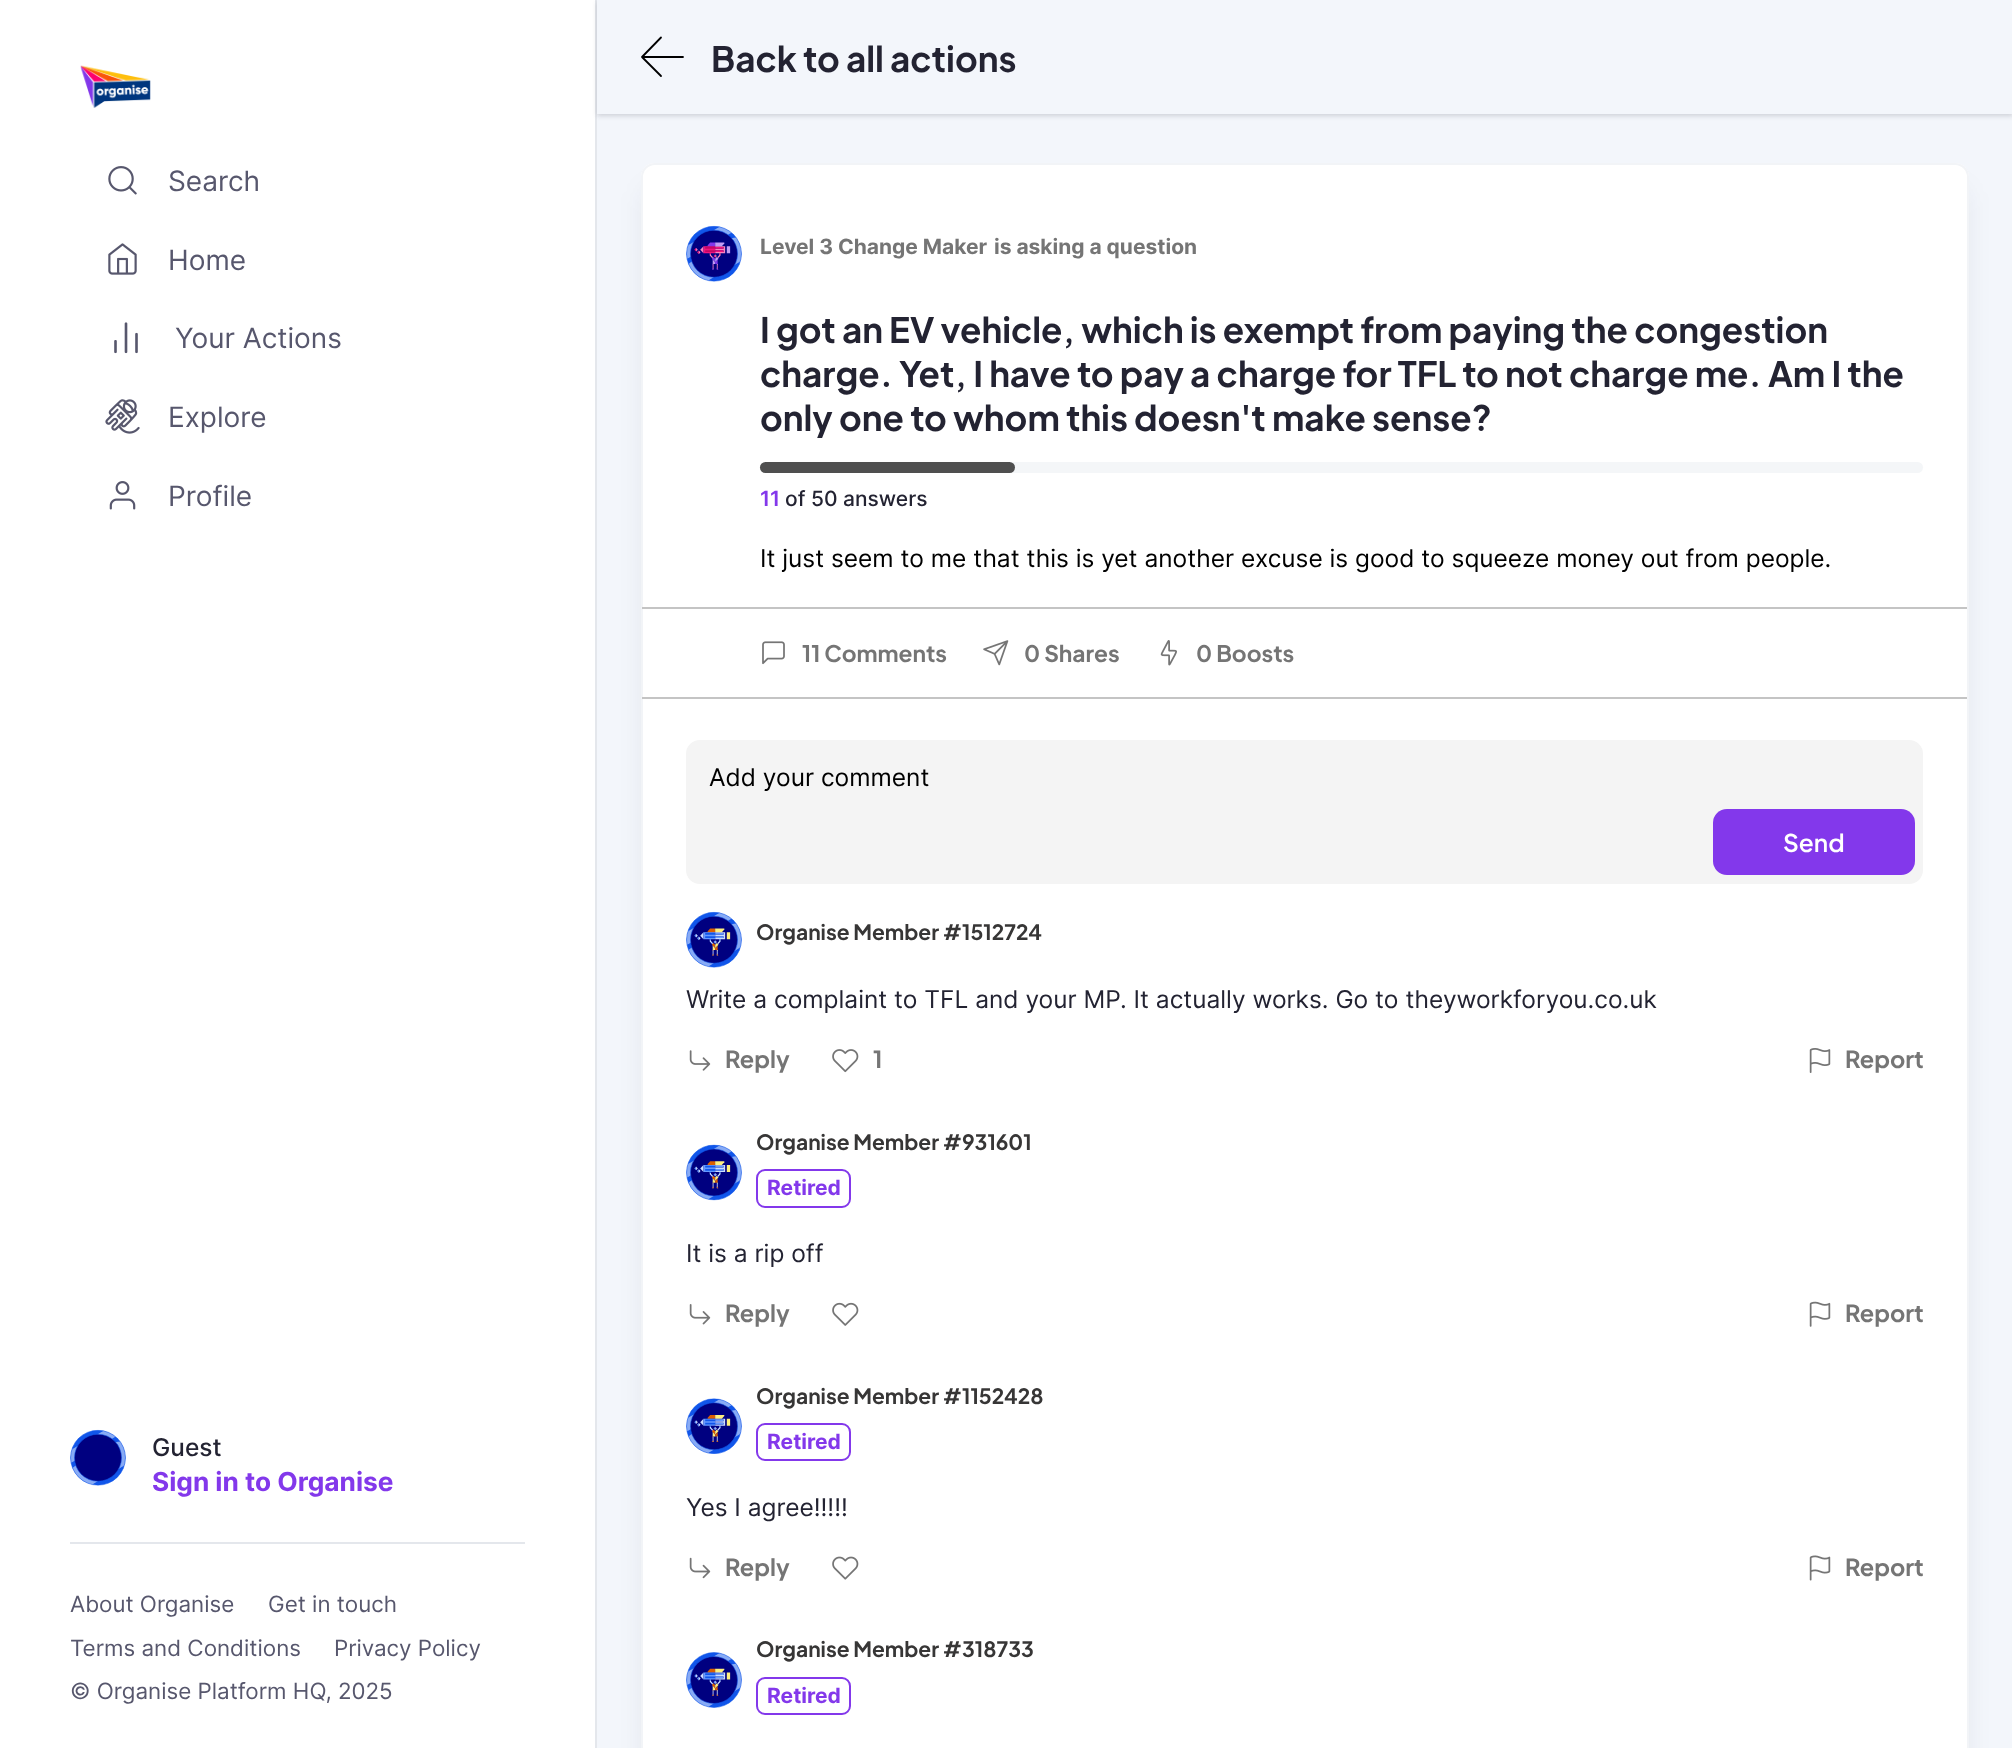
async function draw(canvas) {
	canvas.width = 2012;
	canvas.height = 1748;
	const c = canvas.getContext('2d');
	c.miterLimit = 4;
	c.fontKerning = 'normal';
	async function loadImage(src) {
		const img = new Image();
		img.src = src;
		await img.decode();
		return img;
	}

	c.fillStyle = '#fff';
	c.fillRect(0, 0, 2012, 1748);
	c.fillStyle = '#e4e7ec';
	c.fillRect(595, 0, 2, 1748);
	c.drawImage(await loadImage('img1.png'), 80, 65, 71, 43);
	c.drawImage(await loadImage('img2.png'), 108, 166, 29, 29);
	c.font = '28px Inter';
	c.fillStyle = '#57576d';
	c.fillText('Search', 168, 191);
	c.drawImage(await loadImage('img3.png'), 108, 243, 29, 32);
	c.fillText('Home', 168, 270);
	c.drawImage(await loadImage('img4.png'), 114, 322, 24, 32);
	c.fillText('Your Actions', 175, 348);
	c.drawImage(await loadImage('img5.png'), 105, 399, 35, 35);
	c.fillText('Explore', 168, 427);
	c.drawImage(await loadImage('img6.png'), 109, 481, 27, 29);
	c.fillText('Profile', 168, 506);
	c.fillStyle = '#e4e7ec';
	c.fillRect(70, 1542, 455, 2);
	c.drawImage(await loadImage('img7.png'), 70, 1429, 56, 57);
	c.font = '500 24.5px Inter';
	c.fillStyle = '#232332';
	c.fillText('Guest', 152, 1456);
	c.font = 'bold 26.25px Inter';
	c.fillStyle = '#8338eb';
	c.fillText('Sign in to Organise', 152, 1491);
	c.font = '22.4px Inter';
	c.fillStyle = '#57576d';
	for (const [text, x, y] of [
		['About Organise', 70, 1612],
		['Get in touch', 268, 1612],
		['Terms and Conditions', 70, 1656],
		['Privacy Policy', 334, 1656],
		['© Organise Platform HQ, 2025', 70, 1699],
	]) {
		c.fillText(text, x, y);
	}
	c.fillStyle = '#f3f6fb';
	c.fillRect(597, 114, 1415, 1634);
	c.fillStyle = '#1018280f';
	c.filter = 'blur(2px)';
	c.beginPath();
	c.rect(597, 2, 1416, 114);
	c.fill();
	c.filter = 'none';
	c.fillStyle = '#1018281a';
	c.filter = 'blur(2.5px)';
	c.beginPath();
	c.rect(597, 2, 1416, 114);
	c.fill();
	c.filter = 'none';
	c.fillStyle = '#f3f6fb';
	c.fillRect(597, 0, 1415, 114);
	c.beginPath();
	c.moveTo(683, 57);
	c.lineTo(642, 57);
	c.moveTo(661, 37.5);
	c.lineTo(642, 57);
	c.lineTo(661, 76);
	c.strokeStyle = '#000';
	c.lineWidth = 1.8;
	c.lineCap = 'round';
	c.lineJoin = 'round';
	c.stroke();
	c.font = 'bold 35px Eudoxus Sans';
	c.fillStyle = '#232332';
	c.fillText('Back to all actions', 711, 72);
	c.fillStyle = '#1018281a';
	c.filter = 'blur(14px)';
	c.beginPath();
	c.roundRect(648, 191, 1314, 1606, 7);
	c.fill();
	c.filter = 'none';
	c.fillStyle = '#fff';
	c.beginPath();
	c.roundRect(641, 163, 1328, 1585, [14, 14, 0, 0]);
	c.fill();
	c.beginPath();
	c.roundRect(642, 164, 1326, 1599, 13);
	c.strokeStyle = '#f2f4f7';
	c.lineWidth = 2;
	c.lineJoin = 'miter';
	c.stroke();
	c.drawImage(await loadImage('img8.png'), 686, 225, 56, 57);
	c.font = 'bold 21px Inter';
	c.fillStyle = '#757575';
	c.fillText('Level 3 Change Maker', 760, 254);
	c.fillText('is asking a question', 994, 254);
	c.font = 'bold 35px Eudoxus Sans';
	c.fillStyle = '#232332';
	for (const [text, x, y] of [
		['I got an EV vehicle, which is exempt from paying the congestion', 760, 343],
		['charge. Yet, I have to pay a charge for TFL to not charge me. Am I the', 760, 387],
		['only one to whom this doesn\'t make sense?', 760, 431],
	]) {
		c.fillText(text, x, y);
	}
	c.fillStyle = '#f4f6f8';
	c.beginPath();
	c.roundRect(760, 462, 1163, 11, 5.5);
	c.fill();
	c.fillStyle = '#4f4f4f';
	c.beginPath();
	c.roundRect(760, 462, 255, 11, 5.5);
	c.fill();
	c.font = '600 21px Inter';
	c.fillStyle = '#8338eb';
	c.fillText('11', 760, 506);
	c.font = '500 21px Inter';
	c.fillStyle = '#232332';
	c.fillText('of 50 answers', 785, 506);
	c.font = '24.5px Inter';
	c.fillStyle = '#000';
	c.fillText('It just seem to me that this is yet another excuse is good to squeeze money out from people.', 760, 567);
	c.fillStyle = '#c4c4c4';
	c.fillRect(642, 607, 1325, 2);
	c.fillRect(642, 697, 1325, 2);
	c.drawImage(await loadImage('img9.png'), 762, 641, 23, 24);
	c.font = 'bold 22.75px Eudoxus Sans';
	c.fillStyle = '#757575';
	c.fillText('11 Comments', 802, 662);
	c.drawImage(await loadImage('img10.png'), 983, 640, 26, 26);
	c.fillText('0 Shares', 1024, 662);
	c.drawImage(await loadImage('img11.png'), 1160, 640, 17, 26);
	c.fillText('0 Boosts', 1196, 662);
	c.fillStyle = '#f4f4f4';
	c.beginPath();
	c.roundRect(687, 741, 1235, 142, 13);
	c.fill();
	c.strokeStyle = '#f4f4f4';
	c.stroke();
	c.font = '24.5px Inter';
	c.fillStyle = '#000';
	c.fillText('Add your comment', 709, 786);
	c.fillStyle = '#8338eb';
	c.beginPath();
	c.roundRect(1713, 809, 202, 66, 14);
	c.fill();
	c.font = '600 24.5px Eudoxus Sans';
	c.fillStyle = '#fff';
	c.fillText('Send', 1783, 852);
	c.drawImage(await loadImage('img12.png'), 686, 911, 56, 57);
	c.font = 'bold 21px Eudoxus Sans';
	c.fillStyle = '#373636';
	c.fillText('Organise Member #1512724', 756, 940);
	c.font = '24.5px Inter';
	c.fillStyle = '#232332';
	c.fillText('Write a complaint to TFL and your MP. It actually works. Go to theyworkforyou.co.uk', 686, 1008);
	c.drawImage(await loadImage('img13.png'), 689, 1050, 22, 21);
	c.font = 'bold 23.5px Eudoxus Sans';
	c.fillStyle = '#757575';
	c.fillText('Reply', 725, 1068);
	c.drawImage(await loadImage('img14.png'), 832, 1049, 27, 24);
	c.fillText('1', 873, 1068);
	c.drawImage(await loadImage('img15.png'), 1809, 1048, 22, 25);
	c.fillText('Report', 1845, 1068);
	c.drawImage(await loadImage('img16.png'), 686, 1144, 56, 57);
	c.font = 'bold 21px Eudoxus Sans';
	c.fillStyle = '#373636';
	c.fillText('Organise Member #931601', 756, 1150);
	c.beginPath();
	c.roundRect(757, 1170, 93, 37, 8);
	c.strokeStyle = '#8338eb';
	c.stroke();
	c.font = 'bold 21px Inter';
	c.fillStyle = '#8338eb';
	c.fillText('Retired', 767, 1195);
	c.font = '24.5px Inter';
	c.fillStyle = '#232332';
	c.fillText('It is a rip off', 686, 1262);
	c.drawImage(await loadImage('img17.png'), 689, 1304, 22, 21);
	c.font = 'bold 23.5px Eudoxus Sans';
	c.fillStyle = '#757575';
	c.fillText('Reply', 725, 1322);
	c.drawImage(await loadImage('img18.png'), 832, 1302, 27, 24);
	c.drawImage(await loadImage('img19.png'), 1809, 1301, 22, 26);
	c.fillText('Report', 1845, 1322);
	c.drawImage(await loadImage('img20.png'), 686, 1398, 56, 56);
	c.font = 'bold 21px Eudoxus Sans';
	c.fillStyle = '#373636';
	c.fillText('Organise Member #1152428', 756, 1404);
	c.beginPath();
	c.roundRect(757, 1424, 93, 36, 8);
	c.stroke();
	c.font = 'bold 21px Inter';
	c.fillStyle = '#8338eb';
	c.fillText('Retired', 767, 1449);
	c.font = '24.5px Inter';
	c.fillStyle = '#232332';
	c.fillText('Yes I agree!!!!!', 686, 1516);
	c.drawImage(await loadImage('img21.png'), 689, 1557, 22, 22);
	c.font = 'bold 23.5px Eudoxus Sans';
	c.fillStyle = '#757575';
	c.fillText('Reply', 725, 1576);
	c.drawImage(await loadImage('img22.png'), 832, 1556, 27, 24);
	c.drawImage(await loadImage('img23.png'), 1809, 1555, 22, 26);
	c.fillText('Report', 1845, 1576);
	c.drawImage(await loadImage('img24.png'), 686, 1652, 56, 56);
	c.font = 'bold 21px Eudoxus Sans';
	c.fillStyle = '#373636';
	c.fillText('Organise Member #318733', 756, 1657);
	c.beginPath();
	c.roundRect(757, 1678, 93, 36, 8);
	c.stroke();
	c.font = 'bold 21px Inter';
	c.fillStyle = '#8338eb';
	c.fillText('Retired', 767, 1703);
}

draw(document.querySelector('canvas'));
